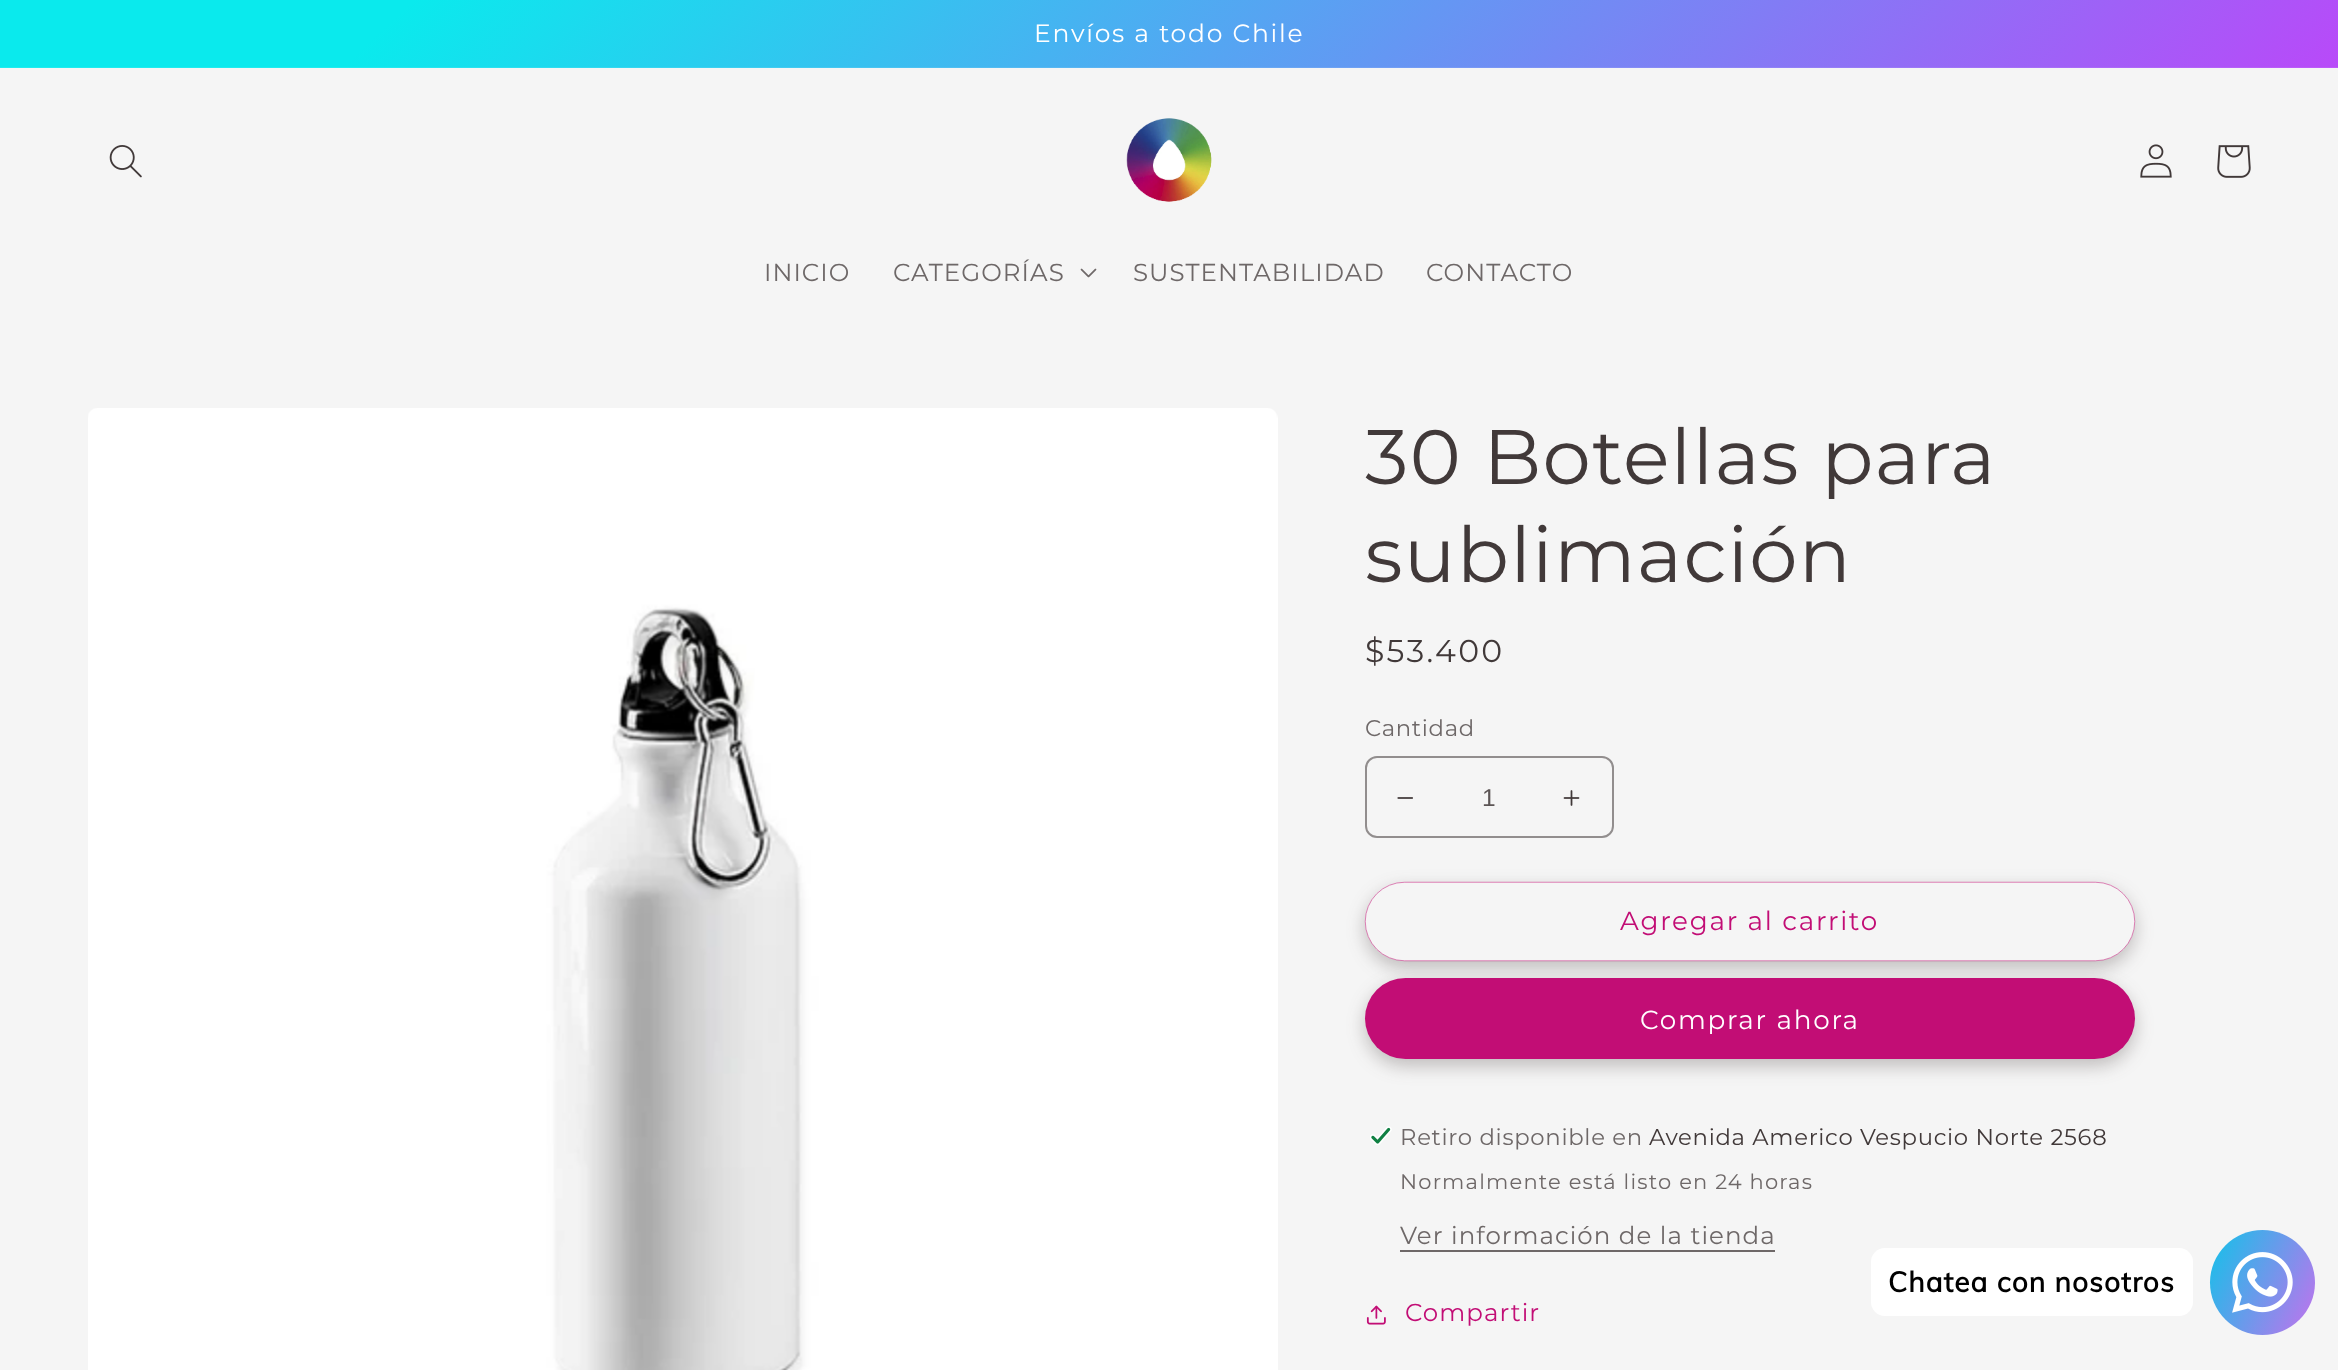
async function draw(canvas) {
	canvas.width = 2338;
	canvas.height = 1370;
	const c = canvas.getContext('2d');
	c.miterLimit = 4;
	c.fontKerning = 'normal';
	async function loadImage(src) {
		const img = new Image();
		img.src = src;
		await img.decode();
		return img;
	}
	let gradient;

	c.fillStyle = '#f5f5f5';
	c.fillRect(0, 0, 2338, 1370);
	gradient = c.createLinearGradient(263, -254, 2075, 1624);
	gradient.addColorStop(0.11, '#0aeaed');
	gradient.addColorStop(0.84, '#fa0dfd');
	c.fillStyle = gradient;
	c.fillRect(0, 0, 2338, 67);
	gradient = c.createLinearGradient(263, -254, 2075, 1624);
	gradient.addColorStop(0.11, '#1eecee');
	gradient.addColorStop(0.84, '#fa20fd');
	c.fillStyle = gradient;
	c.fillRect(0, 67, 2338, 1);
	c.letterSpacing = '1.75px';
	c.font = '25px Montserrat';
	c.fillStyle = '#fff';
	c.fillText('Envíos a todo Chile', 1034, 42);
	c.drawImage(await loadImage('img1.png'), 109, 145, 33, 33);
	c.drawImage(await loadImage('img2.png'), 1126, 118, 86, 84);
	c.drawImage(await loadImage('img3.png'), 2140, 144, 32, 34);
	c.drawImage(await loadImage('img4.png'), 2217, 145, 34, 33);
	c.letterSpacing = '1.05px';
	c.font = '24.5px Montserrat';
	c.fillStyle = '#6e6868';
	c.fillText('INICIO', 764, 281);
	c.fillText('CATEGORÍAS', 893, 281);
	c.drawImage(await loadImage('img5.png'), 1080, 268, 17, 10);
	c.fillText('SUSTENTABILIDAD', 1133, 281);
	c.fillText('CONTACTO', 1426, 281);
	c.drawImage(await loadImage('img6.png'), 88, 408, 1190, 962);
	c.letterSpacing = '1.2px';
	c.font = '77px Montserrat';
	c.fillStyle = '#413939';
	c.fillText('30 Botellas para', 1365, 484);
	c.fillText('sublimación', 1365, 582);
	c.letterSpacing = '2.25px';
	c.font = '31.5px Montserrat';
	c.fillText('$53.400', 1365, 662);
	c.letterSpacing = '0.7px';
	c.font = '22.75px Montserrat';
	c.fillStyle = '#6e6868';
	c.fillText('Cantidad', 1365, 736);
	c.drawImage(await loadImage('img7.png'), 1397, 797, 16, 2);
	c.drawImage(await loadImage('img8.png'), 1563, 790, 17, 16);
	c.beginPath();
	c.roundRect(1366, 757, 247, 80, 11);
	c.strokeStyle = '#928e8e';
	c.lineWidth = 2;
	c.stroke();
	c.letterSpacing = '0px';
	c.font = '24.5px Liberation Sans';
	c.fillStyle = '#5c5555';
	c.fillText('1', 1482, 806);
	c.fillStyle = '#4139394d';
	c.filter = 'blur(9px)';
	c.beginPath();
	c.roundRect(1365, 889, 770, 79, 39.5);
	c.fill();
	c.filter = 'none';
	c.filter = 'blur(9px)';
	c.beginPath();
	c.roundRect(1365, 985, 770, 81, 40.5);
	c.fill();
	c.filter = 'none';
	c.fillStyle = '#f5f5f5';
	c.beginPath();
	c.roundRect(1365, 882, 770, 79, 39.5);
	c.fill();
	c.beginPath();
	c.roundRect(1365.25, 882.25, 769.5, 78.5, 39.25);
	c.strokeStyle = '#c20d75';
	c.lineWidth = 0.5;
	c.stroke();
	c.letterSpacing = '1.75px';
	c.font = '26.25px Montserrat';
	c.fillStyle = '#c20d75';
	c.fillText('Agregar al carrito', 1620, 930);
	c.beginPath();
	c.roundRect(1365, 978, 770, 81, 40.5);
	c.fill();
	c.fillStyle = '#fff';
	c.fillText('Comprar ahora', 1640, 1029);
	c.drawImage(await loadImage('img9.png'), 1370, 1126, 22, 19);
	c.letterSpacing = '0.7px';
	c.font = '22.75px Montserrat';
	c.fillStyle = '#6e6868';
	c.fillText('Retiro disponible en', 1400, 1145);
	c.fillStyle = '#413939';
	c.fillText('Avenida Americo Vespucio Norte 2568', 1649, 1145);
	c.letterSpacing = '1.2px';
	c.font = '21px Montserrat';
	c.fillStyle = '#6e6868';
	c.fillText('Normalmente está listo en 24 horas', 1400, 1189);
	c.letterSpacing = '1.05px';
	c.font = '24.5px Montserrat';
	c.fillText('Ver información de la tienda', 1400, 1244);
	c.fillRect(1400, 1250, 375, 2);
	c.drawImage(await loadImage('img10.png'), 1366, 1305, 20, 20);
	c.fillStyle = '#c20d75';
	c.fillText('Compartir', 1405, 1321);
	gradient = c.createLinearGradient(2200, 1253, 2326, 1312);
	gradient.addColorStop(0, '#12c2e9');
	gradient.addColorStop(1, '#c471ed');
	c.fillStyle = gradient;
	c.beginPath();
	c.arc(2262.5, 1282.5, 52.5, 0, 2 * Math.PI);
	c.fill();
	c.fillStyle = '#fff';
	c.beginPath();
	c.roundRect(1871, 1248, 322, 68, 14);
	c.fill();
	c.font = 'bold 28px Muli';
	c.fillStyle = '#000';
	c.fillText('Chatea con nosotros', 1888, 1292);
	c.drawImage(await loadImage('img11.png'), 2232, 1252, 61, 61);
}

draw(document.querySelector('canvas'));
